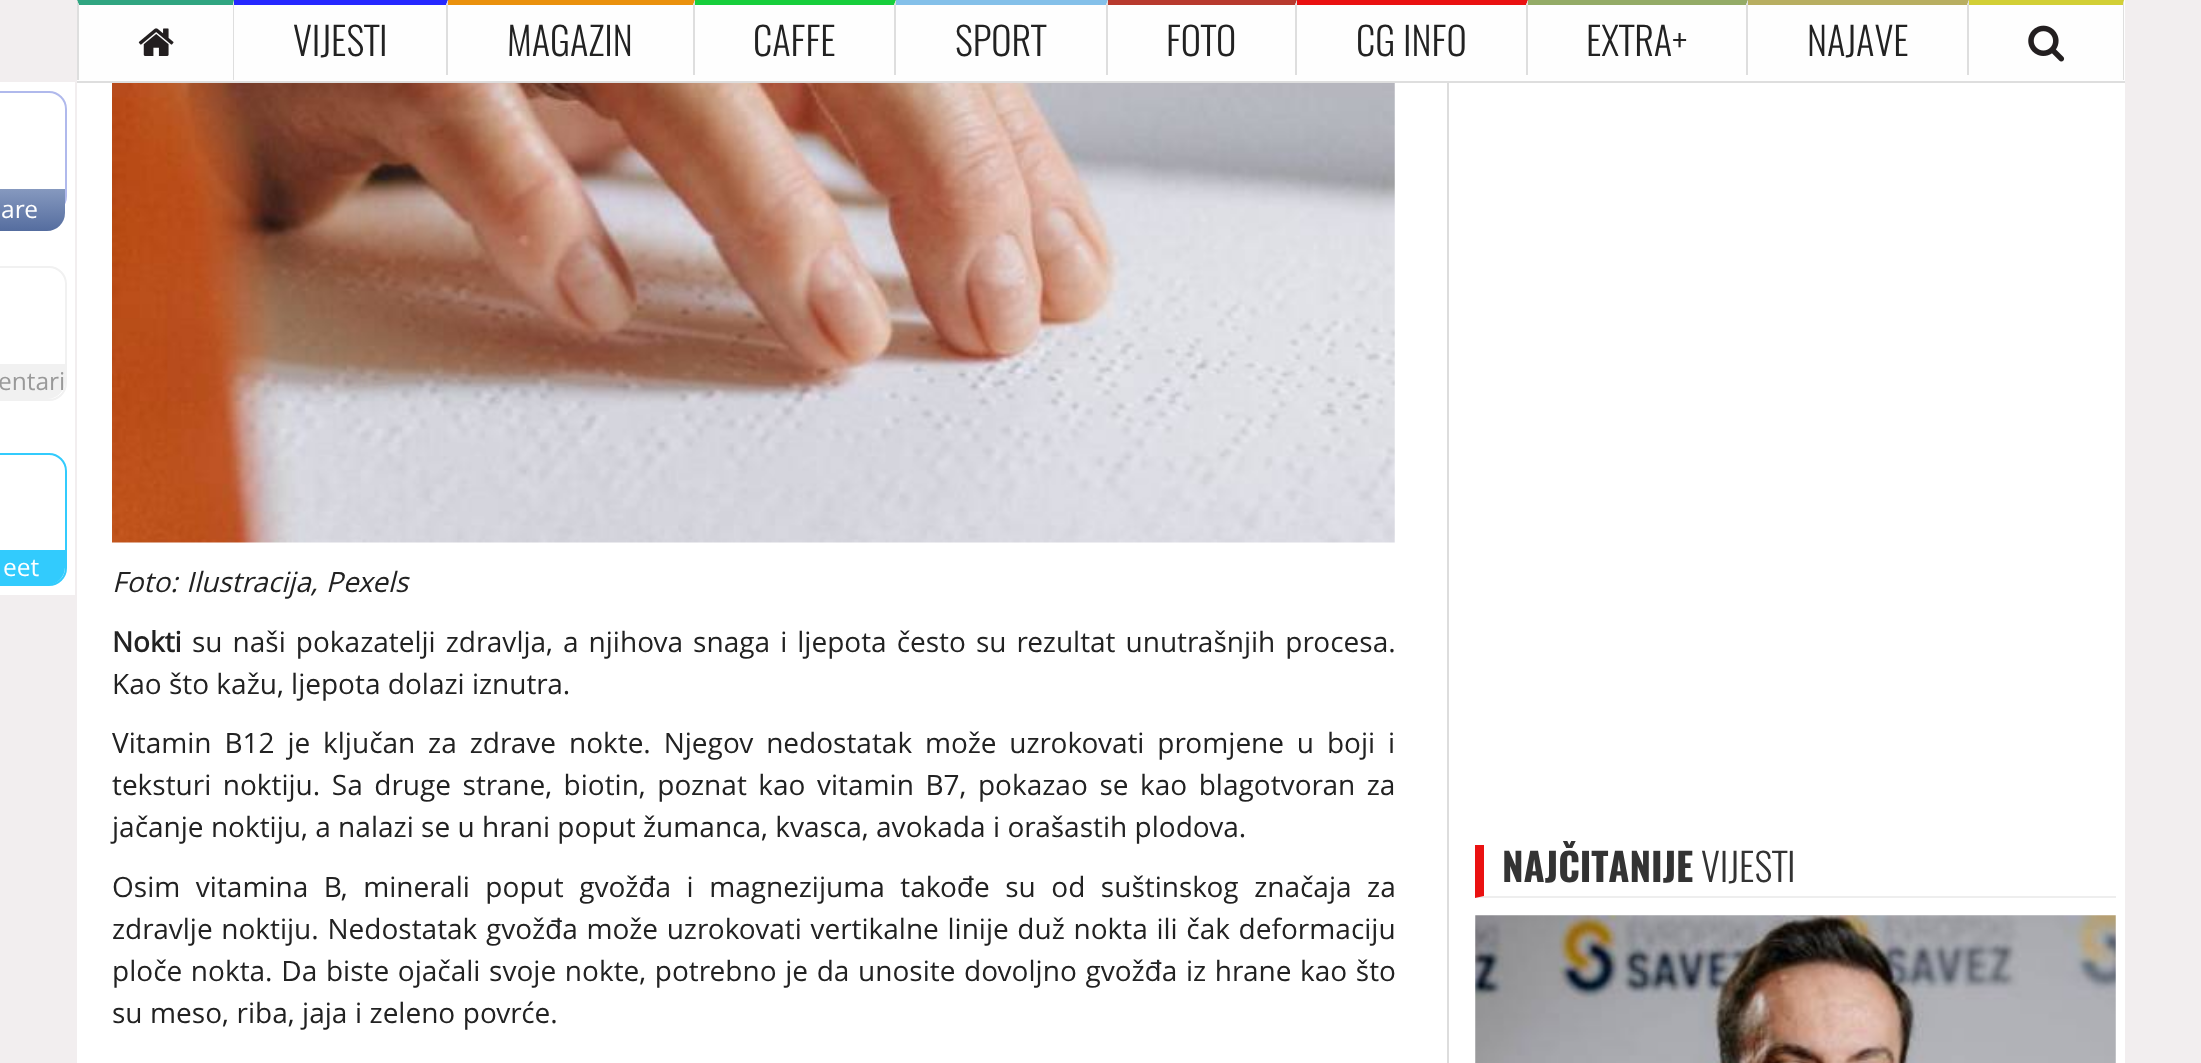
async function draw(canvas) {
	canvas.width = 2201;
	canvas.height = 1063;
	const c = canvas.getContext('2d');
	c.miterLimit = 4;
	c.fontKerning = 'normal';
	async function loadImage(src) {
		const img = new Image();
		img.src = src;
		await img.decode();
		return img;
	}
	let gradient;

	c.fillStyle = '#f2eeef';
	c.fillRect(0, 0, 2201, 1063);
	c.fillStyle = '#fefefe';
	c.fillRect(77, 0, 2048, 81);
	c.fillStyle = '#dedede';
	c.fillRect(77, 81, 2048, 2);
	c.fillStyle = '#30a581';
	c.beginPath();
	c.moveTo(77, 0);
	c.lineTo(234, 0);
	c.lineTo(233, 5);
	c.lineTo(79, 5);
	c.closePath();
	c.fill();
	c.fillStyle = '#dedede';
	c.beginPath();
	c.moveTo(234, 0);
	c.lineTo(234, 80);
	c.lineTo(233, 80);
	c.lineTo(233, 5);
	c.closePath();
	c.fill();
	c.beginPath();
	c.moveTo(77, 80);
	c.lineTo(77, 0);
	c.lineTo(79, 5);
	c.lineTo(79, 80);
	c.closePath();
	c.fill();
	c.drawImage(await loadImage('img1.png'), 138, 28, 36, 28);
	c.fillStyle = '#2528ff';
	c.beginPath();
	c.moveTo(234, 0);
	c.lineTo(448, 0);
	c.lineTo(446, 5);
	c.lineTo(234, 5);
	c.closePath();
	c.fill();
	c.fillStyle = '#dedede';
	c.beginPath();
	c.moveTo(448, 0);
	c.lineTo(448, 75);
	c.lineTo(446, 75);
	c.lineTo(446, 5);
	c.closePath();
	c.fill();
	c.font = '300 38.5px Oswald';
	c.fillStyle = '#222';
	c.fillText('VIJESTI', 293, 56);
	c.fillStyle = '#ea910d';
	c.beginPath();
	c.moveTo(448, 0);
	c.lineTo(695, 0);
	c.lineTo(693, 5);
	c.lineTo(448, 5);
	c.closePath();
	c.fill();
	c.fillStyle = '#dedede';
	c.beginPath();
	c.moveTo(695, 0);
	c.lineTo(695, 75);
	c.lineTo(693, 75);
	c.lineTo(693, 5);
	c.closePath();
	c.fill();
	c.fillStyle = '#222';
	c.fillText('MAGAZIN', 507, 56);
	c.fillStyle = '#17ce3c';
	c.beginPath();
	c.moveTo(695, 0);
	c.lineTo(896, 0);
	c.lineTo(894, 5);
	c.lineTo(695, 5);
	c.closePath();
	c.fill();
	c.fillStyle = '#dedede';
	c.beginPath();
	c.moveTo(896, 0);
	c.lineTo(896, 75);
	c.lineTo(894, 75);
	c.lineTo(894, 5);
	c.closePath();
	c.fill();
	c.fillStyle = '#222';
	c.fillText('CAFFE', 753, 56);
	c.fillStyle = '#84c0e9';
	c.beginPath();
	c.moveTo(896, 0);
	c.lineTo(1108, 0);
	c.lineTo(1106, 5);
	c.lineTo(896, 5);
	c.closePath();
	c.fill();
	c.fillStyle = '#dedede';
	c.beginPath();
	c.moveTo(1108, 0);
	c.lineTo(1108, 75);
	c.lineTo(1106, 75);
	c.lineTo(1106, 5);
	c.closePath();
	c.fill();
	c.fillStyle = '#222';
	c.fillText('SPORT', 955, 56);
	c.fillStyle = '#b83a2e';
	c.beginPath();
	c.moveTo(1108, 0);
	c.lineTo(1297, 0);
	c.lineTo(1295, 5);
	c.lineTo(1108, 5);
	c.closePath();
	c.fill();
	c.fillStyle = '#dedede';
	c.beginPath();
	c.moveTo(1297, 0);
	c.lineTo(1297, 75);
	c.lineTo(1295, 75);
	c.lineTo(1295, 5);
	c.closePath();
	c.fill();
	c.fillStyle = '#222';
	c.fillText('FOTO', 1166, 56);
	c.fillStyle = '#ea1111';
	c.beginPath();
	c.moveTo(1297, 0);
	c.lineTo(1528, 0);
	c.lineTo(1526, 5);
	c.lineTo(1297, 5);
	c.closePath();
	c.fill();
	c.fillStyle = '#dedede';
	c.beginPath();
	c.moveTo(1528, 0);
	c.lineTo(1528, 75);
	c.lineTo(1526, 75);
	c.lineTo(1526, 5);
	c.closePath();
	c.fill();
	c.fillStyle = '#222';
	c.fillText('CG INFO', 1356, 56);
	c.fillStyle = '#94ab67';
	c.beginPath();
	c.moveTo(1528, 0);
	c.lineTo(1748, 0);
	c.lineTo(1746, 5);
	c.lineTo(1528, 5);
	c.closePath();
	c.fill();
	c.fillStyle = '#dedede';
	c.beginPath();
	c.moveTo(1748, 0);
	c.lineTo(1748, 75);
	c.lineTo(1746, 75);
	c.lineTo(1746, 5);
	c.closePath();
	c.fill();
	c.fillStyle = '#222';
	c.fillText('EXTRA+', 1586, 56);
	c.fillStyle = '#b8ae61';
	c.beginPath();
	c.moveTo(1748, 0);
	c.lineTo(1969, 0);
	c.lineTo(1967, 5);
	c.lineTo(1748, 5);
	c.closePath();
	c.fill();
	c.fillStyle = '#dedede';
	c.beginPath();
	c.moveTo(1969, 0);
	c.lineTo(1969, 75);
	c.lineTo(1967, 75);
	c.lineTo(1967, 5);
	c.closePath();
	c.fill();
	c.fillStyle = '#222';
	c.fillText('NAJAVE', 1807, 56);
	c.fillStyle = '#d2cf36';
	c.beginPath();
	c.moveTo(1969, 0);
	c.lineTo(2124, 0);
	c.lineTo(2123, 5);
	c.lineTo(1969, 5);
	c.closePath();
	c.fill();
	c.fillStyle = '#dedede';
	c.beginPath();
	c.moveTo(2124, 0);
	c.lineTo(2124, 80);
	c.lineTo(2123, 80);
	c.lineTo(2123, 5);
	c.closePath();
	c.fill();
	c.drawImage(await loadImage('img2.png'), 2028, 25, 37, 37);
	c.fillStyle = '#fff';
	c.fillRect(77, 83, 2048, 980);
	c.fillRect(0, 82, 75, 513);
	c.beginPath();
	c.roundRect(-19, 92, 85, 121, 17);
	c.strokeStyle = '#b0b9ec';
	c.lineWidth = 2;
	c.stroke();
	gradient = c.createLinearGradient(5.2, 189, 5.3, 231);
	gradient.addColorStop(0, '#8699bf');
	gradient.addColorStop(1, '#556d9f');
	c.fillStyle = gradient;
	c.beginPath();
	c.moveTo(-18, 189);
	c.lineTo(65, 189);
	c.lineTo(65, 213);
	c.bezierCurveTo(65, 223, 57, 231, 47, 231);
	c.lineTo(0, 231);
	c.bezierCurveTo(-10, 231, -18, 223, -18, 213);
	c.closePath();
	c.fill();
	c.font = '24.5px Open Sans';
	c.fillStyle = '#fff';
	c.fillText('are', 1, 218);
	c.beginPath();
	c.roundRect(-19, 267, 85, 133, 17);
	c.strokeStyle = '#f1f1f1';
	c.stroke();
	c.fillStyle = '#f1f1f1';
	c.beginPath();
	c.moveTo(-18, 364);
	c.lineTo(65, 364);
	c.lineTo(65, 381.5);
	c.bezierCurveTo(65, 391, 57, 399, 47.5, 399);
	c.lineTo(-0.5, 399);
	c.bezierCurveTo(-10, 399, -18, 391, -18, 381.5);
	c.closePath();
	c.fill();
	c.fillStyle = '#999';
	c.fillText('entari', -2, 390);
	c.beginPath();
	c.roundRect(-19, 454, 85, 131, 17);
	c.strokeStyle = '#32cbfd';
	c.stroke();
	c.fillStyle = '#32cbfd';
	c.beginPath();
	c.moveTo(-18, 550);
	c.lineTo(65, 550);
	c.lineTo(65, 567.5);
	c.bezierCurveTo(65, 577, 57, 585, 47.5, 585);
	c.lineTo(-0.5, 585);
	c.bezierCurveTo(-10, 585, -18, 577, -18, 567.5);
	c.closePath();
	c.fill();
	c.fillStyle = '#fff';
	c.fillText('eet', 3, 576);
	c.drawImage(await loadImage('img3.png'), 112, 83, 1283, 460);
	c.wordSpacing = '1px';
	c.font = 'italic 28px Open Sans';
	c.fillStyle = '#222';
	c.fillText('Foto: Ilustracija, Pexels', 112, 592);
	c.wordSpacing = '0px';
	c.font = 'bold 28px Open Sans';
	c.fillText('Nokti', 112, 652);
	c.wordSpacing = '2.75px';
	c.font = '28px Open Sans';
	c.fillText('su naši pokazatelji zdravlja, a njihova snaga i ljepota često su rezultat unutrašnjih procesa.', 192, 652);
	c.wordSpacing = '0px';
	c.fillText('Kao što kažu, ljepota dolazi iznutra.', 112, 694);
	c.wordSpacing = '5.6px';
	c.fillText('Vitamin B12 je ključan za zdrave nokte. Njegov nedostatak može uzrokovati promjene u boji i', 112, 753);
	c.wordSpacing = '4.25px';
	c.fillText('teksturi noktiju. Sa druge strane, biotin, poznat kao vitamin B7, pokazao se kao blagotvoran za', 112, 795);
	c.wordSpacing = '0.1px';
	c.fillText('jačanje noktiju, a nalazi se u hrani poput žumanca, kvasca, avokada i orašastih plodova.', 112, 837);
	c.wordSpacing = '8.25px';
	c.fillText('Osim vitamina B, minerali poput gvožđa i magnezijuma takođe su od suštinskog značaja za', 112, 897);
	c.wordSpacing = '1.4px';
	c.fillText('zdravlje noktiju. Nedostatak gvožđa može uzrokovati vertikalne linije duž nokta ili čak deformaciju', 112, 939);
	c.fillText('ploče nokta. Da biste ojačali svoje nokte, potrebno je da unosite dovoljno gvožđa iz hrane kao što', 112, 981);
	c.wordSpacing = '0.25px';
	c.fillText('su meso, riba, jaja i zeleno povrće.', 112, 1023);
	c.fillStyle = '#ddd';
	c.fillRect(1447, 83, 2, 980);
	c.fillStyle = '#eee';
	c.beginPath();
	c.moveTo(2116, 898);
	c.lineTo(1475, 898);
	c.lineTo(1484, 896);
	c.lineTo(2116, 896);
	c.closePath();
	c.fill();
	c.fillStyle = '#ea1111';
	c.beginPath();
	c.moveTo(1475, 898);
	c.lineTo(1475, 845);
	c.lineTo(1484, 845);
	c.lineTo(1484, 896);
	c.closePath();
	c.fill();
	c.wordSpacing = '0px';
	c.font = 'bold 38.5px Oswald';
	c.fillStyle = '#333';
	c.fillText('NAJČITANIJE', 1502, 882);
	c.font = '300 38.5px Oswald';
	c.fillText('VIJESTI', 1701, 882);
	c.drawImage(await loadImage('img4.png'), 1475, 915, 641, 148);
}

draw(document.querySelector('canvas'));
